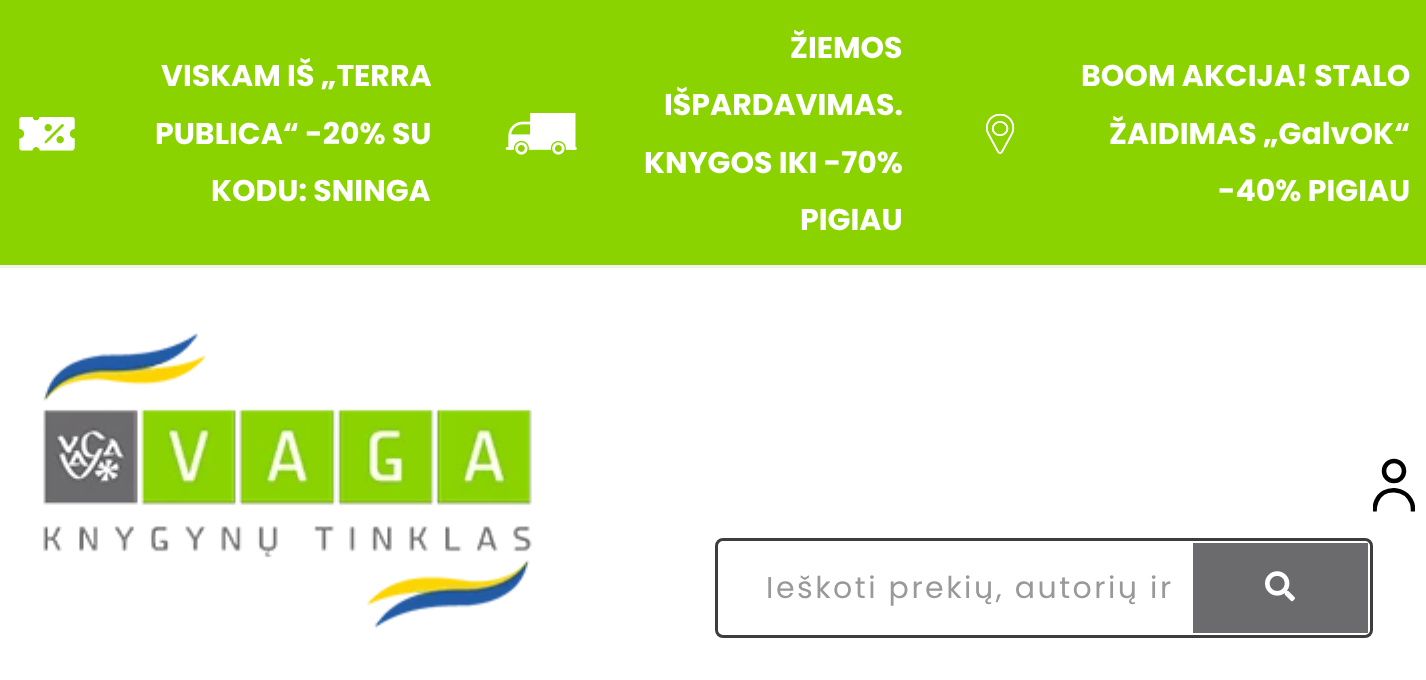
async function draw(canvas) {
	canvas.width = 1426;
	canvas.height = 680;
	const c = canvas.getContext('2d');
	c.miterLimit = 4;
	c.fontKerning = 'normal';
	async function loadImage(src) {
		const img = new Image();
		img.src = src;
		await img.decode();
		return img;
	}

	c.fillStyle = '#fff';
	c.fillRect(0, 0, 1426, 680);
	c.fillStyle = '#f1f1f1';
	c.fillRect(0, 265, 1426, 3);
	c.fillStyle = '#8ad300';
	c.fillRect(0, 0, 1426, 265);
	c.drawImage(await loadImage('img1.png'), 19, 117, 56, 34);
	c.font = 'bold 30px Poppins';
	c.fillStyle = '#fff';
	for (const [text, x, y] of [
		['VISKAM IŠ „TERRA', 161, 86],
		['PUBLICA“ -20% SU', 155, 144],
		['KODU: SNINGA', 211, 201],
	]) {
		c.fillText(text, x, y);
	}
	c.drawImage(await loadImage('img2.png'), 505, 113, 72, 42);
	for (const [text, x, y] of [
		['ŽIEMOS', 790, 58],
		['IŠPARDAVIMAS.', 664, 115],
		['KNYGOS IKI -70%', 644, 173],
		['PIGIAU', 800, 230],
	]) {
		c.fillText(text, x, y);
	}
	c.drawImage(await loadImage('img3.png'), 986, 114, 29, 40);
	for (const [text, x, y] of [
		['BOOM AKCIJA! STALO', 1081, 86],
		['ŽAIDIMAS „GalvOK“', 1109, 144],
		['-40% PIGIAU', 1218, 201],
	]) {
		c.fillText(text, x, y);
	}
	c.drawImage(await loadImage('img4.png'), 43, 333, 489, 295);
	c.save();
	c.beginPath();
	c.rect(1373, 455, 42, 60);
	c.clip();
	c.beginPath();
	c.moveTo(1374.5, 511.5);
	c.bezierCurveTo(1374.5, 507.5, 1375, 504.5, 1376.5, 501);
	c.bezierCurveTo(1383.5, 485.5, 1406, 487, 1412, 503);
	c.bezierCurveTo(1413, 505.5, 1413, 508.5, 1413, 511.5);
	c.strokeStyle = '#000';
	c.lineWidth = 4.5;
	c.stroke();
	c.restore();
	c.beginPath();
	c.arc(1394, 471, 10, 0, 2 * Math.PI);
	c.strokeStyle = '#000';
	c.lineWidth = 4.5;
	c.stroke();
	c.beginPath();
	c.roundRect(716.5, 539.5, 655, 97, 6.5);
	c.strokeStyle = '#3d3d3d';
	c.lineWidth = 3;
	c.stroke();
	c.letterSpacing = '2.5px';
	c.font = '30px Poppins';
	c.fillStyle = '#999';
	c.fillText('Ieškoti prekių, autorių ir', 766, 598);
	c.fillStyle = '#6b6b6d';
	c.fillRect(1193, 543, 175, 90);
	c.drawImage(await loadImage('img5.png'), 1265, 571, 30, 31);
}

draw(document.querySelector('canvas'));
